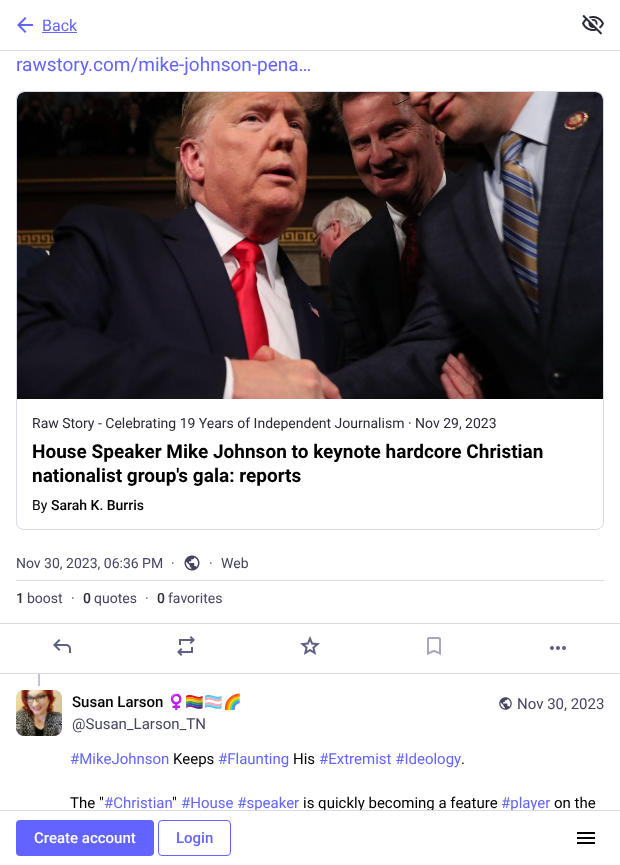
async function draw(canvas) {
	canvas.width = 620;
	canvas.height = 865;
	const c = canvas.getContext('2d');
	c.miterLimit = 4;
	c.fontKerning = 'normal';
	async function loadImage(src) {
		const img = new Image();
		img.src = src;
		await img.decode();
		return img;
	}

	c.fillStyle = '#fff';
	c.fillRect(0, 0, 620, 865);
	c.fillStyle = '#d9d9e8';
	c.fillRect(0, 50, 620, 1);
	c.drawImage(await loadImage('img1.png'), 17, 17, 16, 16);
	c.font = '16px Roboto';
	c.fillStyle = '#6364ff';
	c.fillText('Back', 42, 31);
	c.fillRect(42, 32, 35, 1);
	c.drawImage(await loadImage('img2.png'), 582, 14, 22, 21);
	c.font = '19px Roboto';
	c.fillText('rawstory.com/mike-johnson-pena…', 16, 71);
	c.beginPath();
	c.roundRect(16.5, 91.5, 587, 438, 7.5);
	c.strokeStyle = '#d9d9e8';
	c.stroke();
	c.drawImage(await loadImage('img3.png'), 17, 92, 586, 307);
	c.font = '14px Roboto';
	c.fillStyle = '#292938';
	c.fillText('Raw Story - Celebrating 19 Years of Independent Journalism · Nov 29, 2023', 32, 428);
	c.font = 'bold 19px Roboto';
	c.fillStyle = '#000';
	c.fillText('House Speaker Mike Johnson to keynote hardcore Christian', 32, 458);
	c.fillText('nationalist group\'s gala: reports', 32, 482);
	c.font = '14px Roboto';
	c.fillText('By', 32, 510);
	c.font = '500 14px Roboto';
	c.fillText('Sarah K. Burris', 51, 510);
	c.fillStyle = '#d9d9e8';
	c.fillRect(16, 580, 588, 1);
	c.font = '14px Roboto';
	c.fillStyle = '#45455f';
	c.fillText('Nov 30, 2023, 06:36 PM', 16, 568);
	c.fillText('·', 171, 568);
	c.drawImage(await loadImage('img4.png'), 184, 555, 16, 16);
	c.fillText('·', 209, 568);
	c.fillText('Web', 221, 568);
	c.font = '500 14px Roboto';
	c.fillStyle = '#292938';
	c.fillText('1', 16, 603);
	c.font = '14px Roboto';
	c.fillStyle = '#45455f';
	c.fillText('boost', 27, 603);
	c.fillText('·', 71, 603);
	c.font = '500 14px Roboto';
	c.fillStyle = '#292938';
	c.fillText('0', 83, 603);
	c.font = '14px Roboto';
	c.fillStyle = '#45455f';
	c.fillText('quotes', 94, 603);
	c.fillText('·', 145, 603);
	c.font = '500 14px Roboto';
	c.fillStyle = '#292938';
	c.fillText('0', 157, 603);
	c.font = '14px Roboto';
	c.fillStyle = '#45455f';
	c.fillText('favorites', 168, 603);
	c.fillStyle = '#d9d9e8';
	c.fillRect(0, 623, 620, 1);
	c.fillRect(0, 673, 620, 1);
	c.drawImage(await loadImage('img5.png'), 53, 639, 18, 14);
	c.drawImage(await loadImage('img6.png'), 177, 636, 18, 20);
	c.drawImage(await loadImage('img7.png'), 300, 636, 20, 19);
	c.drawImage(await loadImage('img8.png'), 427, 637, 14, 18);
	c.drawImage(await loadImage('img9.png'), 550, 646, 16, 4);
	c.fillStyle = '#c6bfd9';
	c.fillRect(38, 674, 2, 12);
	c.fillStyle = '#e8e6f0';
	c.beginPath();
	c.roundRect(16, 690, 46, 46, 8);
	c.fill();
	c.drawImage(await loadImage('img10.png'), 16, 690, 46, 46);
	c.font = '500 15px Roboto';
	c.fillStyle = '#000';
	c.fillText('Susan Larson', 72, 707);
	c.font = '15px Noto Color Emoji';
	c.fillText('♀️🏳️‍🌈🏳️‍⚧️🌈', 167, 707);
	c.font = '15px Roboto';
	c.fillStyle = '#45455f';
	c.fillText('@Susan_Larson_TN', 72, 729);
	c.drawImage(await loadImage('img11.png'), 499, 697, 13, 13);
	c.fillText('Nov 30, 2023', 517, 709);
	c.fillStyle = '#6364ff';
	c.fillText('#MikeJohnson', 70, 764);
	c.fillStyle = '#000';
	c.fillText('Keeps', 173, 764);
	c.fillStyle = '#6364ff';
	c.fillText('#Flaunting', 218, 764);
	c.fillStyle = '#000';
	c.fillText('His', 293, 764);
	c.fillStyle = '#6364ff';
	c.fillText('#Extremist #Ideology', 319, 764);
	c.fillStyle = '#000';
	c.fillText('.', 461, 764);
	c.fillText('The "', 70, 808);
	c.fillStyle = '#6364ff';
	c.fillText('#Christian', 104, 808);
	c.fillStyle = '#000';
	c.fillText('"', 172, 808);
	c.fillStyle = '#6364ff';
	c.fillText('#House #speaker', 181, 808);
	c.fillStyle = '#000';
	c.fillText('is quickly becoming a feature', 303, 808);
	c.fillStyle = '#6364ff';
	c.fillText('#player', 501, 808);
	c.fillStyle = '#000';
	c.fillText('on the', 554, 808);
	c.fillStyle = '#fff';
	c.fillRect(255, 811, 278, 1);
	c.fillStyle = '#d9d9e8';
	c.fillRect(0, 810, 620, 1);
	c.fillStyle = '#6364ff';
	c.beginPath();
	c.roundRect(16, 820, 138, 36, 4);
	c.fill();
	c.font = '500 15px Roboto';
	c.fillStyle = '#fff';
	c.fillText('Create account', 34, 843);
	c.beginPath();
	c.roundRect(158.5, 820.5, 72, 35, 3.5);
	c.strokeStyle = '#6364ff';
	c.stroke();
	c.fillStyle = '#6364ff';
	c.fillText('Login', 176, 843);
	c.drawImage(await loadImage('img12.png'), 577, 832, 18, 12);
}

draw(document.querySelector('canvas'));
